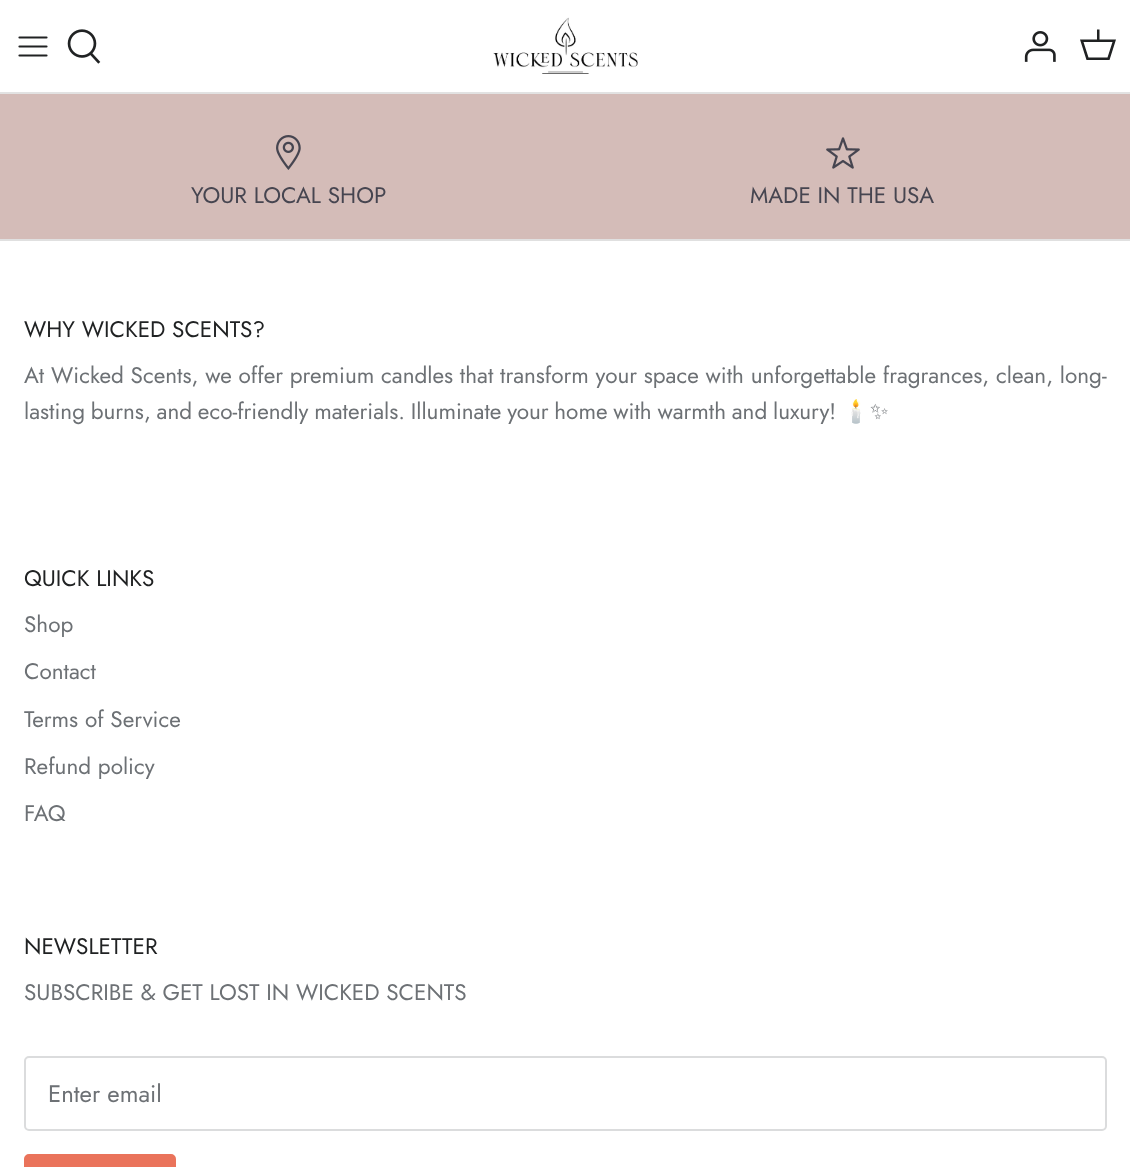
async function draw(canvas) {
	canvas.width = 1130;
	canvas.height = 1167;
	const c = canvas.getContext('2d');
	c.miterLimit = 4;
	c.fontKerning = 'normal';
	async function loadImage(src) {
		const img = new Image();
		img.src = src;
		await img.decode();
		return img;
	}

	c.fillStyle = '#fff';
	c.fillRect(0, 0, 1130, 1167);
	c.fillStyle = '#e2e2e2';
	c.fillRect(0, 92, 1130, 2);
	c.beginPath();
	c.moveTo(19.5, 46.5);
	c.lineTo(46.5, 46.5);
	c.moveTo(19.5, 37.5);
	c.lineTo(46.5, 37.5);
	c.moveTo(19.5, 55.5);
	c.lineTo(46.5, 55.5);
	c.strokeStyle = '#202223';
	c.lineWidth = 2.2;
	c.lineCap = 'round';
	c.lineJoin = 'round';
	c.stroke();
	c.drawImage(await loadImage('img1.png'), 67, 29, 34, 35);
	c.drawImage(await loadImage('img2.png'), 493, 17, 145, 57);
	c.drawImage(await loadImage('img3.png'), 1024, 31, 32, 31);
	c.fillStyle = '#202223';
	c.beginPath();
	c.moveTo(1097, 39.5);
	c.lineTo(1097, 29.5);
	c.lineTo(1099.5, 29.5);
	c.lineTo(1099.5, 39.5);
	c.lineTo(1116, 39.5);
	c.lineTo(1109.5, 60);
	c.lineTo(1086.5, 60);
	c.lineTo(1080, 39.5);
	c.closePath();
	c.moveTo(1083.5, 42);
	c.lineTo(1088.5, 57.5);
	c.lineTo(1107.5, 57.5);
	c.lineTo(1112.5, 42);
	c.closePath();
	c.fill();
	c.fillStyle = '#d4bcb8';
	c.fillRect(0, 94, 1130, 145);
	c.drawImage(await loadImage('img4.png'), 276, 135, 25, 35);
	c.font = '22.5px Jost';
	c.fillStyle = '#464550';
	c.fillText('YOUR LOCAL SHOP', 191, 203);
	c.drawImage(await loadImage('img5.png'), 826, 137, 34, 32);
	c.fillText('MADE IN THE USA', 750, 203);
	c.fillStyle = '#e0e0e0';
	c.fillRect(0, 239, 1130, 2);
	c.fillStyle = '#202223';
	c.fillText('WHY WICKED SCENTS?', 24, 337);
	c.fillStyle = '#6d7175';
	c.fillText('At Wicked Scents, we offer premium candles that transform your space with unforgettable fragrances, clean, long-', 24, 383);
	c.wordSpacing = '-1px';
	c.fillText('lasting burns, and eco-friendly materials. Illuminate your home with warmth and luxury!', 24, 419);
	c.wordSpacing = '0px';
	c.font = '22.5px Noto Color Emoji';
	c.fillText('🕯', 842, 419);
	c.font = '22.5px FreeSerif';
	c.fillText('✨', 870, 419);
	c.font = '22.5px Jost';
	c.fillStyle = '#202223';
	c.fillText('QUICK LINKS', 24, 586);
	c.fillStyle = '#6d7175';
	for (const [text, x, y] of [
		['Shop', 24, 632],
		['Contact', 24, 679],
		['Terms of Service', 24, 727],
		['Refund policy', 24, 774],
		['FAQ', 24, 821],
	]) {
		c.fillText(text, x, y);
	}
	c.fillStyle = '#202223';
	c.fillText('NEWSLETTER', 24, 954);
	c.fillStyle = '#6d7175';
	c.fillText('SUBSCRIBE & GET LOST IN WICKED SCENTS', 24, 1000);
	c.beginPath();
	c.roundRect(25, 1057, 1081, 73, 4);
	c.strokeStyle = '#dbdcdd';
	c.lineWidth = 2;
	c.lineJoin = 'miter';
	c.stroke();
	c.font = '24px Jost';
	c.fillText('Enter email', 48, 1102);
	c.fillStyle = '#ea735b';
	c.beginPath();
	c.roundRect(25, 1155, 150, 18, 4);
	c.fill();
	c.strokeStyle = '#ea735b';
	c.stroke();
}

draw(document.querySelector('canvas'));
